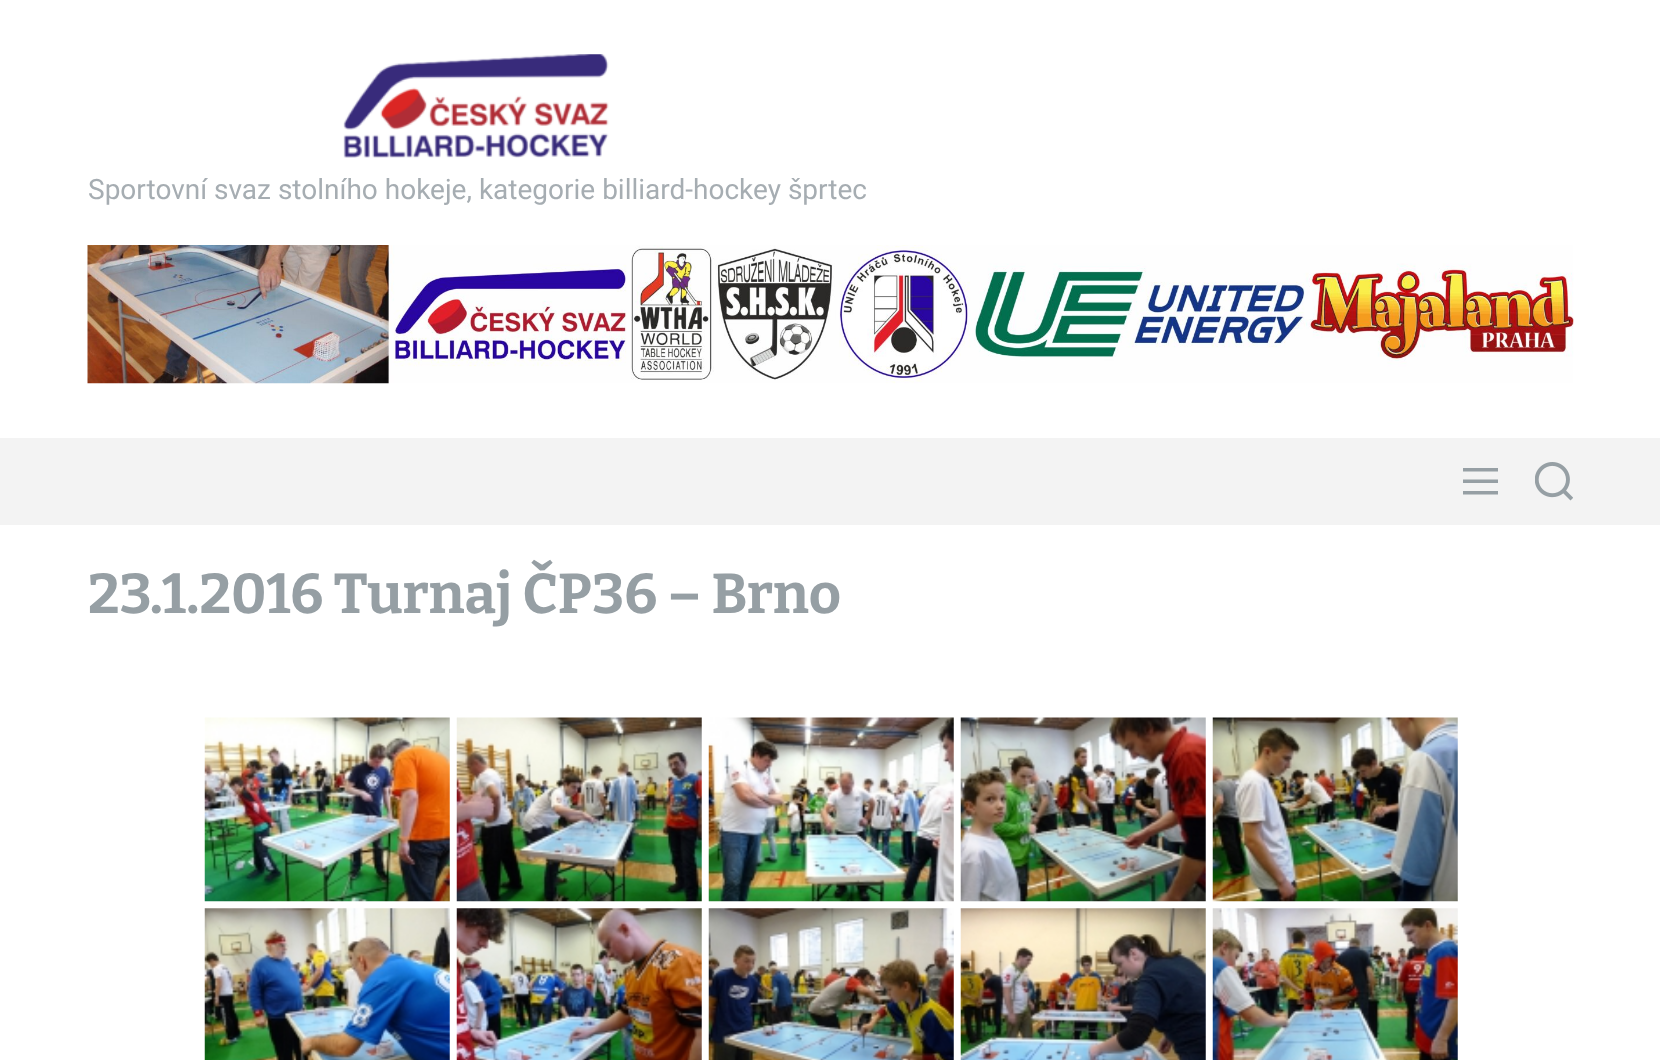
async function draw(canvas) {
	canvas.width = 1660;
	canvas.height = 1060;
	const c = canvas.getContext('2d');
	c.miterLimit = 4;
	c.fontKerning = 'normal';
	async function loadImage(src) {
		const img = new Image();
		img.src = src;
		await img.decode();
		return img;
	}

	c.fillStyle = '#fff';
	c.fillRect(0, 0, 1660, 1060);
	c.drawImage(await loadImage('img1.png'), 343, 54, 266, 104);
	c.font = '28px Roboto';
	c.fillStyle = '#a6adb2';
	c.fillText('Sportovní svaz stolního hokeje, kategorie billiard-hockey šprtec', 88, 199);
	c.drawImage(await loadImage('img2.png'), 87, 245, 1487, 139);
	c.fillStyle = '#f3f3f3';
	c.fillRect(0, 438, 1660, 87);
	c.fillStyle = '#969fa4';
	c.beginPath();
	c.moveTo(1463, 468);
	c.lineTo(1463, 471.5);
	c.lineTo(1498, 471.5);
	c.lineTo(1498, 468);
	c.closePath();
	c.moveTo(1463, 483);
	c.lineTo(1498, 483);
	c.lineTo(1498, 479.5);
	c.lineTo(1463, 479.5);
	c.closePath();
	c.moveTo(1463, 494.5);
	c.lineTo(1498, 494.5);
	c.lineTo(1498, 491);
	c.lineTo(1463, 491);
	c.closePath();
	c.fill();
	c.drawImage(await loadImage('img3.png'), 1535, 462, 38, 39);
	c.font = 'bold 56px Bitter';
	c.fillText('23.1.2016 Turnaj ČP36 – Brno', 88, 613);
	c.drawImage(await loadImage('img4.png'), 204, 717, 246, 185);
	c.drawImage(await loadImage('img5.png'), 456, 717, 246, 185);
	c.drawImage(await loadImage('img6.png'), 708, 717, 246, 185);
	c.drawImage(await loadImage('img7.png'), 960, 717, 246, 185);
	c.drawImage(await loadImage('img8.png'), 1212, 717, 246, 185);
	c.drawImage(await loadImage('img9.png'), 204, 908, 246, 152);
	c.drawImage(await loadImage('img10.png'), 456, 908, 246, 152);
	c.drawImage(await loadImage('img11.png'), 708, 908, 246, 152);
	c.drawImage(await loadImage('img12.png'), 960, 908, 246, 152);
	c.drawImage(await loadImage('img13.png'), 1212, 908, 246, 152);
}

draw(document.querySelector('canvas'));
